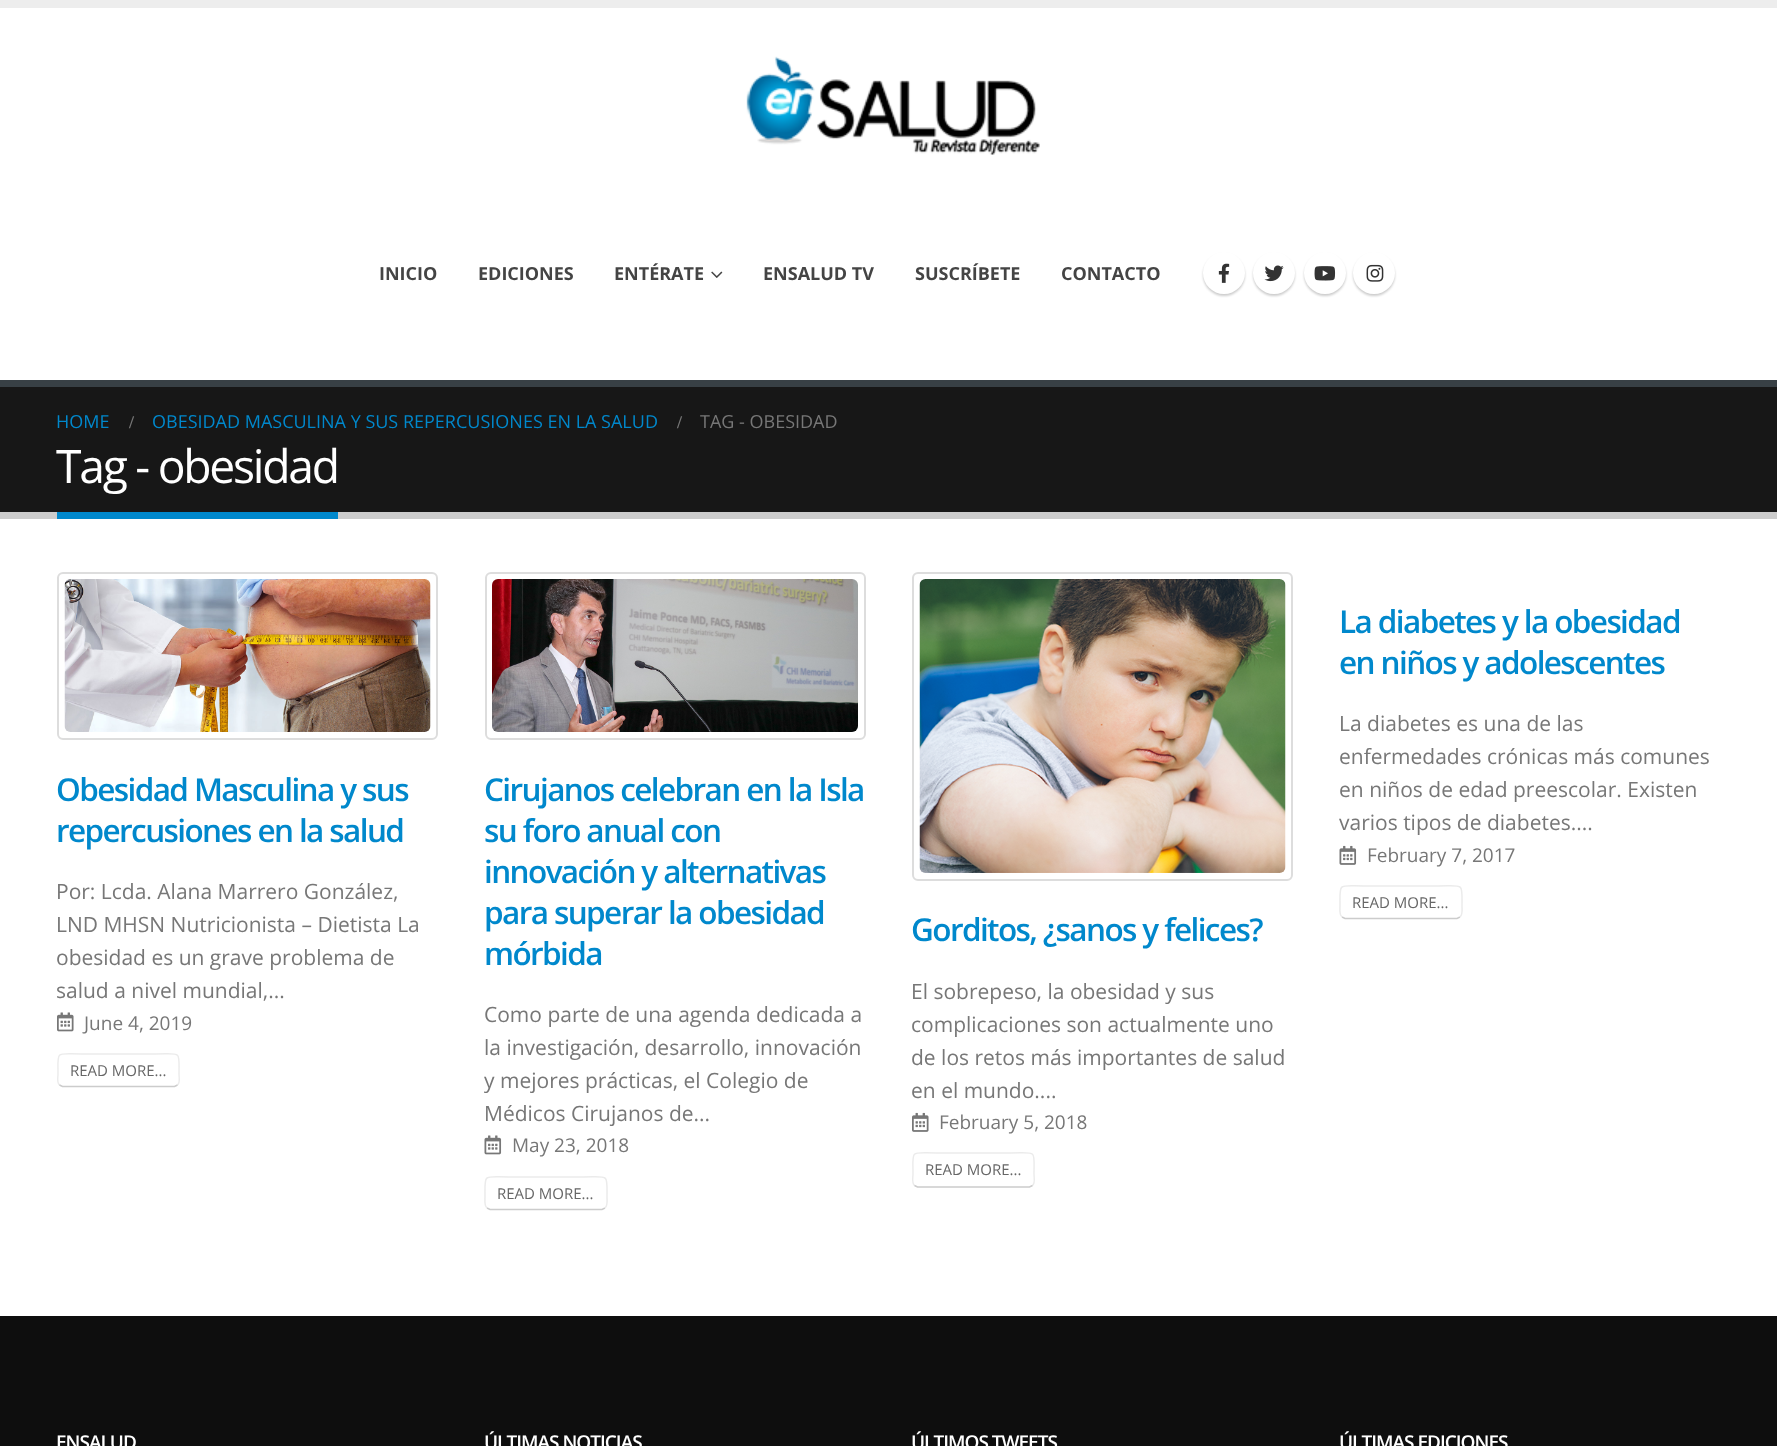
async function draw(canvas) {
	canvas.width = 1777;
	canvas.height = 1446;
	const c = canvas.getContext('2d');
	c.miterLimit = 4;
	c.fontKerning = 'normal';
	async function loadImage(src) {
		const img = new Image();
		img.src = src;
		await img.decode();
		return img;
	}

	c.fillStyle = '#fff';
	c.fillRect(0, 0, 1777, 1446);
	c.fillStyle = '#ededed';
	c.fillRect(0, 0, 1777, 8);
	c.drawImage(await loadImage('img1.png'), 746, 56, 294, 99);
	c.font = 'bold 18px Open Sans';
	c.fillStyle = '#444';
	for (const [text, x, y] of [
		['INICIO', 379, 280],
		['EDICIONES', 478, 280],
		['ENTÉRATE', 614, 280],
	]) {
		c.fillText(text, x, y);
	}
	c.drawImage(await loadImage('img2.png'), 711, 271, 12, 7);
	for (const [text, x, y] of [
		['ENSALUD TV', 763, 280],
		['SUSCRÍBETE', 915, 280],
		['CONTACTO', 1061, 280],
	]) {
		c.fillText(text, x, y);
	}
	c.fillStyle = '#00000033';
	c.filter = 'blur(1px)';
	c.beginPath();
	c.roundRect(1203, 254, 42, 42, 21);
	c.fill();
	c.filter = 'none';
	c.fillStyle = '#fff';
	c.beginPath();
	c.arc(1224, 273, 21, 0, 2 * Math.PI);
	c.fill();
	c.drawImage(await loadImage('img3.png'), 1218, 263, 12, 20);
	c.fillStyle = '#00000033';
	c.filter = 'blur(1px)';
	c.beginPath();
	c.roundRect(1253, 254, 42, 42, 21);
	c.fill();
	c.filter = 'none';
	c.fillStyle = '#fff';
	c.beginPath();
	c.arc(1274, 273, 21, 0, 2 * Math.PI);
	c.fill();
	c.drawImage(await loadImage('img4.png'), 1264, 265, 20, 17);
	c.fillStyle = '#00000033';
	c.filter = 'blur(1px)';
	c.beginPath();
	c.roundRect(1304, 254, 42, 42, 21);
	c.fill();
	c.filter = 'none';
	c.fillStyle = '#fff';
	c.beginPath();
	c.arc(1325, 273, 21, 0, 2 * Math.PI);
	c.fill();
	c.drawImage(await loadImage('img5.png'), 1314, 266, 22, 15);
	c.fillStyle = '#00000033';
	c.filter = 'blur(1px)';
	c.beginPath();
	c.roundRect(1353, 254, 42, 42, 21);
	c.fill();
	c.filter = 'none';
	c.fillStyle = '#fff';
	c.beginPath();
	c.arc(1374, 273, 21, 0, 2 * Math.PI);
	c.fill();
	c.drawImage(await loadImage('img6.png'), 1366, 264, 18, 18);
	for (const [x, y, w, h, color] of [
		[0, 387, 1777, 125, '#171717'],
		[0, 380, 1777, 7, '#384045'],
		[0, 512, 1777, 7, '#ccc'],
	]) {
		c.fillStyle = color;
		c.fillRect(x, y, w, h);
	}
	c.font = '18px Open Sans';
	c.fillStyle = '#08c';
	c.fillText('HOME', 56, 428);
	c.font = 'bold 18px Liberation Serif';
	c.fillStyle = '#777';
	c.fillText('/', 129, 428);
	c.font = '18px Open Sans';
	c.fillStyle = '#08c';
	c.fillText('OBESIDAD MASCULINA Y SUS REPERCUSIONES EN LA SALUD', 152, 428);
	c.font = 'bold 18px Liberation Serif';
	c.fillStyle = '#777';
	c.fillText('/', 677, 428);
	c.font = '18px Open Sans';
	c.fillText('TAG - OBESIDAD', 700, 428);
	c.letterSpacing = '-2.25px';
	c.font = '46.25px Open Sans';
	c.fillStyle = '#fff';
	c.fillText('Tag - obesidad', 56, 483);
	c.fillStyle = '#08c';
	c.fillRect(57, 512, 281, 7);
	c.beginPath();
	c.roundRect(58, 573, 379, 166, 5);
	c.strokeStyle = '#ddd';
	c.lineWidth = 2;
	c.stroke();
	c.drawImage(await loadImage('img7.png'), 64, 579, 367, 153);
	c.letterSpacing = '-1.6px';
	c.font = '600 31.5px Open Sans';
	c.fillText('Obesidad Masculina y sus', 56, 801);
	c.fillText('repercusiones en la salud', 56, 842);
	c.letterSpacing = '0px';
	c.font = '21px Open Sans';
	c.fillStyle = '#777';
	for (const [text, x, y] of [
		['Por: Lcda. Alana Marrero González,', 56, 899],
		['LND MHSN Nutricionista – Dietista La', 56, 932],
		['obesidad es un grave problema de', 56, 965],
		['salud a nivel mundial,...', 56, 998],
	]) {
		c.fillText(text, x, y);
	}
	c.drawImage(await loadImage('img8.png'), 57, 1012, 17, 20);
	c.font = '19px Open Sans';
	c.fillText('June 4, 2019', 84, 1030);
	c.beginPath();
	c.moveTo(177.5, 1085);
	c.lineTo(174.5, 1086.5);
	c.lineTo(62.5, 1086.5);
	c.lineTo(59.5, 1085);
	c.strokeStyle = '#ccc';
	c.lineWidth = 1.5;
	c.stroke();
	c.beginPath();
	c.moveTo(59.5, 1085);
	c.bezierCurveTo(56.5, 1082.5, 58, 1077.5, 58, 1074);
	c.bezierCurveTo(58, 1050, 55, 1054, 81.5, 1054);
	c.lineTo(155.5, 1054);
	c.bezierCurveTo(182, 1054, 179, 1050, 179, 1074);
	c.bezierCurveTo(179, 1077.5, 180.5, 1082.5, 177.5, 1085);
	c.strokeStyle = '#00000014';
	c.stroke();
	c.font = '15px Open Sans';
	c.fillStyle = '#666';
	c.fillText('READ MORE...', 70, 1076);
	c.beginPath();
	c.roundRect(486, 573, 379, 166, 5);
	c.strokeStyle = '#ddd';
	c.lineWidth = 2;
	c.stroke();
	c.drawImage(await loadImage('img9.png'), 492, 579, 366, 153);
	c.letterSpacing = '-1.6px';
	c.font = '600 31.5px Open Sans';
	c.fillStyle = '#08c';
	for (const [text, x, y] of [
		['Cirujanos celebran en la Isla', 484, 801],
		['su foro anual con', 484, 842],
		['innovación y alternativas', 484, 883],
		['para superar la obesidad', 484, 924],
		['mórbida', 484, 965],
	]) {
		c.fillText(text, x, y);
	}
	c.letterSpacing = '0px';
	c.font = '21px Open Sans';
	c.fillStyle = '#777';
	for (const [text, x, y] of [
		['Como parte de una agenda dedicada a', 484, 1022],
		['la investigación, desarrollo, innovación', 484, 1055],
		['y mejores prácticas, el Colegio de', 484, 1088],
		['Médicos Cirujanos de...', 484, 1121],
	]) {
		c.fillText(text, x, y);
	}
	c.drawImage(await loadImage('img10.png'), 484, 1135, 18, 20);
	c.font = '19px Open Sans';
	c.fillText('May 23, 2018', 512, 1152);
	c.beginPath();
	c.moveTo(605, 1208);
	c.lineTo(602, 1209.5);
	c.lineTo(490, 1209.5);
	c.lineTo(487, 1208);
	c.strokeStyle = '#ccc';
	c.lineWidth = 1.5;
	c.stroke();
	c.beginPath();
	c.moveTo(487, 1208);
	c.bezierCurveTo(484, 1205.5, 485, 1200.5, 485, 1197);
	c.bezierCurveTo(485, 1173, 482.5, 1177, 509, 1177);
	c.lineTo(583, 1177);
	c.bezierCurveTo(609.5, 1177, 607, 1173, 607, 1197);
	c.bezierCurveTo(607, 1200.5, 608, 1205.5, 605, 1208);
	c.strokeStyle = '#ebebeb';
	c.stroke();
	c.font = '15px Open Sans';
	c.fillStyle = '#666';
	c.fillText('READ MORE...', 497, 1199);
	c.beginPath();
	c.roundRect(913, 573, 379, 307, 5);
	c.strokeStyle = '#ddd';
	c.lineWidth = 2;
	c.stroke();
	c.drawImage(await loadImage('img11.png'), 919, 579, 367, 294);
	c.letterSpacing = '-1.6px';
	c.font = '600 31.5px Open Sans';
	c.fillStyle = '#08c';
	c.fillText('Gorditos, ¿sanos y felices?', 911, 941);
	c.letterSpacing = '0px';
	c.font = '21px Open Sans';
	c.fillStyle = '#777';
	for (const [text, x, y] of [
		['El sobrepeso, la obesidad y sus', 911, 999],
		['complicaciones son actualmente uno', 911, 1032],
		['de los retos más importantes de salud', 911, 1065],
		['en el mundo....', 911, 1098],
	]) {
		c.fillText(text, x, y);
	}
	c.drawImage(await loadImage('img12.png'), 912, 1112, 17, 20);
	c.font = '19px Open Sans';
	c.fillText('February 5, 2018', 939, 1129);
	c.beginPath();
	c.moveTo(1032.5, 1185.5);
	c.lineTo(1029.5, 1187);
	c.lineTo(917.5, 1187);
	c.lineTo(914.5, 1185.5);
	c.strokeStyle = '#ccc';
	c.lineWidth = 1.5;
	c.stroke();
	c.beginPath();
	c.moveTo(914.5, 1185.5);
	c.bezierCurveTo(911.5, 1183, 913, 1177.5, 913, 1174);
	c.bezierCurveTo(913, 1149, 909.5, 1153, 936.5, 1153);
	c.lineTo(1010.5, 1153);
	c.bezierCurveTo(1037.5, 1153, 1034, 1149, 1034, 1174);
	c.bezierCurveTo(1034, 1177.5, 1035.5, 1183, 1032.5, 1185.5);
	c.strokeStyle = '#00000014';
	c.stroke();
	c.font = '15px Open Sans';
	c.fillStyle = '#666';
	c.fillText('READ MORE...', 925, 1175);
	c.letterSpacing = '-1.6px';
	c.font = '600 31.5px Open Sans';
	c.fillStyle = '#08c';
	c.fillText('La diabetes y la obesidad', 1339, 633);
	c.fillText('en niños y adolescentes', 1339, 674);
	c.letterSpacing = '0px';
	c.font = '21px Open Sans';
	c.fillStyle = '#777';
	for (const [text, x, y] of [
		['La diabetes es una de las', 1339, 731],
		['enfermedades crónicas más comunes', 1339, 764],
		['en niños de edad preescolar. Existen', 1339, 797],
		['varios tipos de diabetes....', 1339, 830],
	]) {
		c.fillText(text, x, y);
	}
	c.drawImage(await loadImage('img13.png'), 1339, 845, 18, 20);
	c.font = '19px Open Sans';
	c.fillText('February 7, 2017', 1367, 862);
	c.beginPath();
	c.moveTo(1460, 917);
	c.lineTo(1457, 918.5);
	c.lineTo(1345, 918.5);
	c.lineTo(1342, 917);
	c.strokeStyle = '#ccc';
	c.stroke();
	c.beginPath();
	c.moveTo(1342, 917);
	c.bezierCurveTo(1339, 914.5, 1340, 909.5, 1340, 906);
	c.bezierCurveTo(1340, 882, 1337.5, 886, 1364, 886);
	c.lineTo(1438, 886);
	c.bezierCurveTo(1464.5, 886, 1462, 882, 1462, 906);
	c.bezierCurveTo(1462, 909.5, 1463, 914.5, 1460, 917);
	c.strokeStyle = '#ebebeb';
	c.stroke();
	c.font = '15px Open Sans';
	c.fillStyle = '#666';
	c.fillText('READ MORE...', 1352, 908);
	c.fillStyle = '#0e0e0e';
	c.fillRect(0, 1316, 1777, 130);
	c.letterSpacing = '-1px';
	c.font = '600 19px Open Sans';
	c.fillStyle = '#fff';
	for (const [text, x, y] of [
		['ENSALUD', 56, 1449],
		['ÚLTIMAS NOTICIAS', 484, 1449],
		['ÚLTIMOS TWEETS', 911, 1449],
		['ÚLTIMAS EDICIONES', 1339, 1449],
	]) {
		c.fillText(text, x, y);
	}
}

draw(document.querySelector('canvas'));
